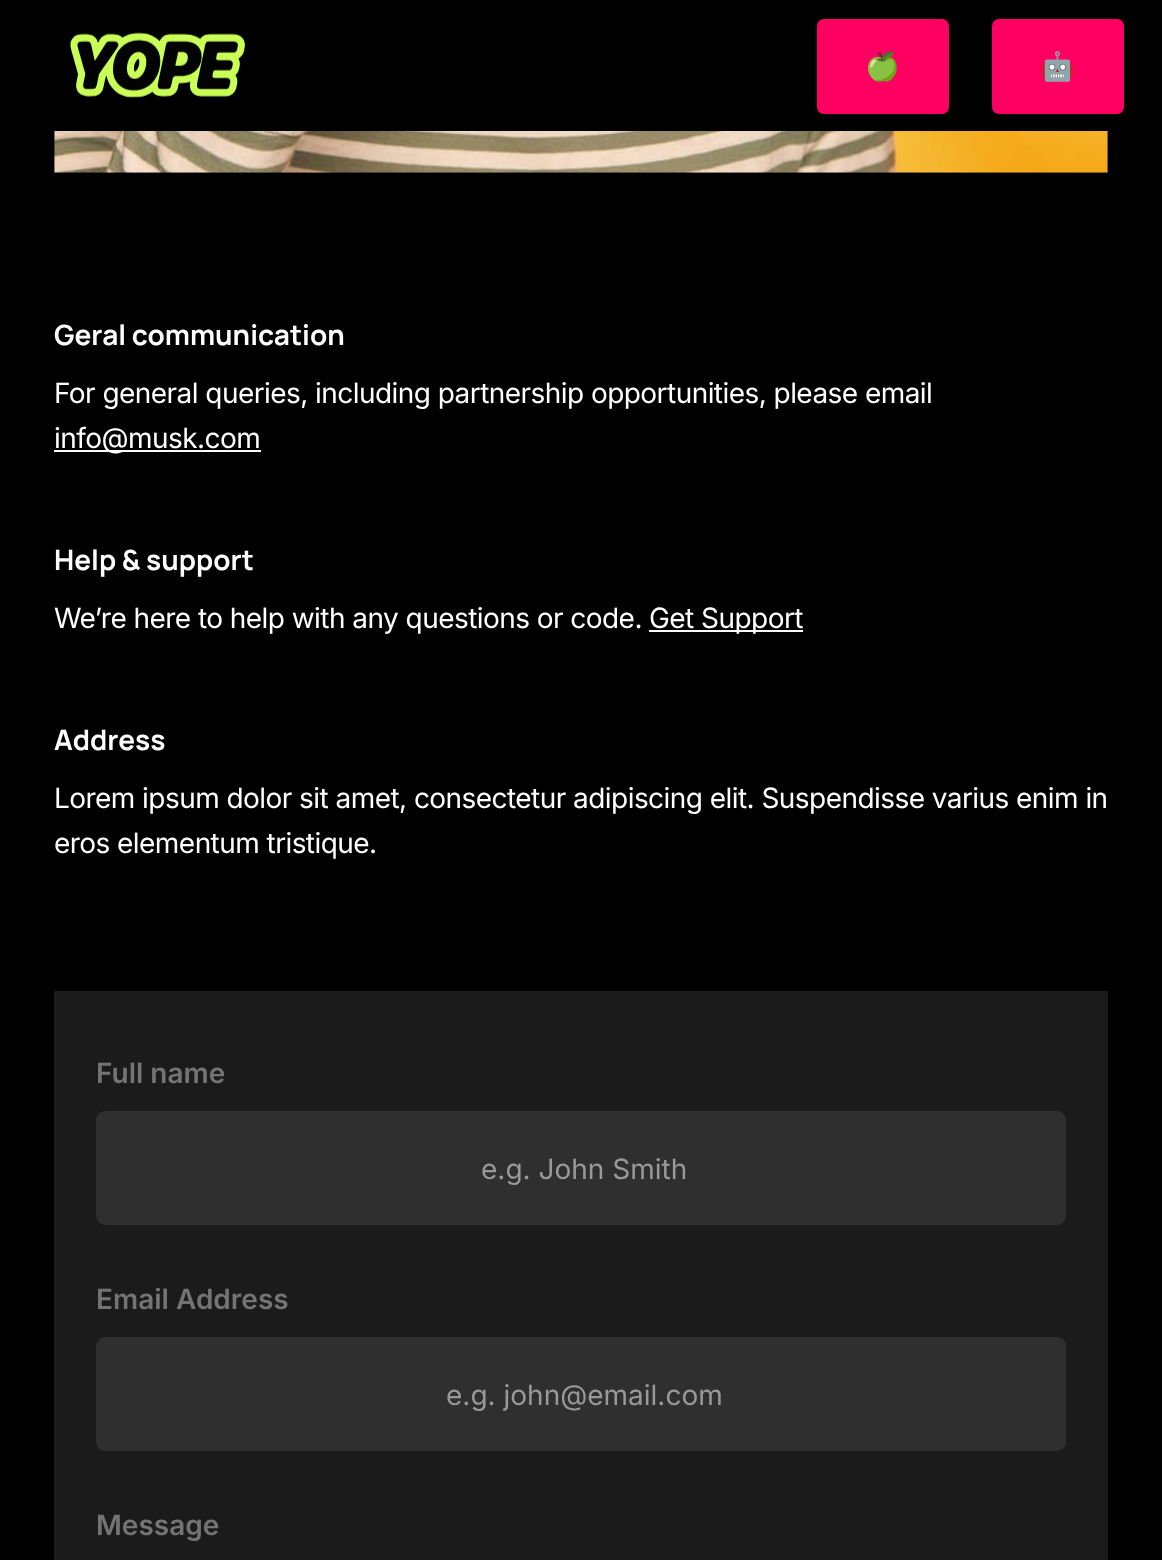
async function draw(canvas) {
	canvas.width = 1162;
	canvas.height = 1560;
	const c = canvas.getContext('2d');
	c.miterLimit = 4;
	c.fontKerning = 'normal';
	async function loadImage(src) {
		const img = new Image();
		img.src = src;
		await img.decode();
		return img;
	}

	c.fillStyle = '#000';
	c.fillRect(0, 0, 1162, 1560);
	c.drawImage(await loadImage('img1.png'), 70, 32, 175, 66);
	c.fillStyle = '#ff0062';
	c.beginPath();
	c.roundRect(817, 19, 132, 95, 7);
	c.fill();
	c.font = '28px Noto Color Emoji';
	c.fillStyle = '#fff';
	c.fillText('🍏', 865, 76);
	c.fillStyle = '#ff0062';
	c.beginPath();
	c.roundRect(992, 19, 132, 95, 7);
	c.fill();
	c.fillStyle = '#fff';
	c.fillText('🤖', 1040, 76);
	c.drawImage(await loadImage('img2.png'), 54, 131, 1054, 42);
	c.font = 'bold 28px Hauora';
	c.fillText('Geral communication', 54, 345);
	c.letterSpacing = '-0.55px';
	c.font = '28px Inter';
	c.fillText('For general queries, including partnership opportunities, please email', 54, 403);
	c.fillRect(54, 450, 207, 2);
	c.fillText('info@musk.com', 54, 448);
	c.letterSpacing = '0px';
	c.font = 'bold 28px Hauora';
	c.fillText('Help & support', 54, 570);
	c.letterSpacing = '-0.55px';
	c.font = '28px Inter';
	c.fillText('We’re here to help with any questions or code.', 54, 628);
	c.fillRect(649, 630, 154, 2);
	c.fillText('Get Support', 649, 628);
	c.letterSpacing = '0px';
	c.font = 'bold 28px Hauora';
	c.fillText('Address', 54, 750);
	c.letterSpacing = '-0.55px';
	c.font = '28px Inter';
	c.fillText('Lorem ipsum dolor sit amet, consectetur adipiscing elit. Suspendisse varius enim in', 54, 808);
	c.fillText('eros elementum tristique.', 54, 853);
	c.fillStyle = '#1b1b1b';
	c.fillRect(54, 991, 1054, 569);
	c.letterSpacing = '0px';
	c.font = '600 28px Inter';
	c.fillStyle = '#747474';
	c.fillText('Full name', 96, 1083);
	c.fillStyle = '#302f2f';
	c.beginPath();
	c.roundRect(96, 1111, 970, 114, 9);
	c.fill();
	c.font = '28px Inter';
	c.fillStyle = '#999';
	c.fillText('e.g. John Smith', 481, 1179);
	c.font = '600 28px Inter';
	c.fillStyle = '#747474';
	c.fillText('Email Address', 96, 1309);
	c.fillStyle = '#302f2f';
	c.beginPath();
	c.roundRect(96, 1337, 970, 114, 9);
	c.fill();
	c.font = '28px Inter';
	c.fillStyle = '#999';
	c.fillText('e.g. john@email.com', 446, 1405);
	c.font = '600 28px Inter';
	c.fillStyle = '#747474';
	c.fillText('Message', 96, 1535);
}

draw(document.querySelector('canvas'));
